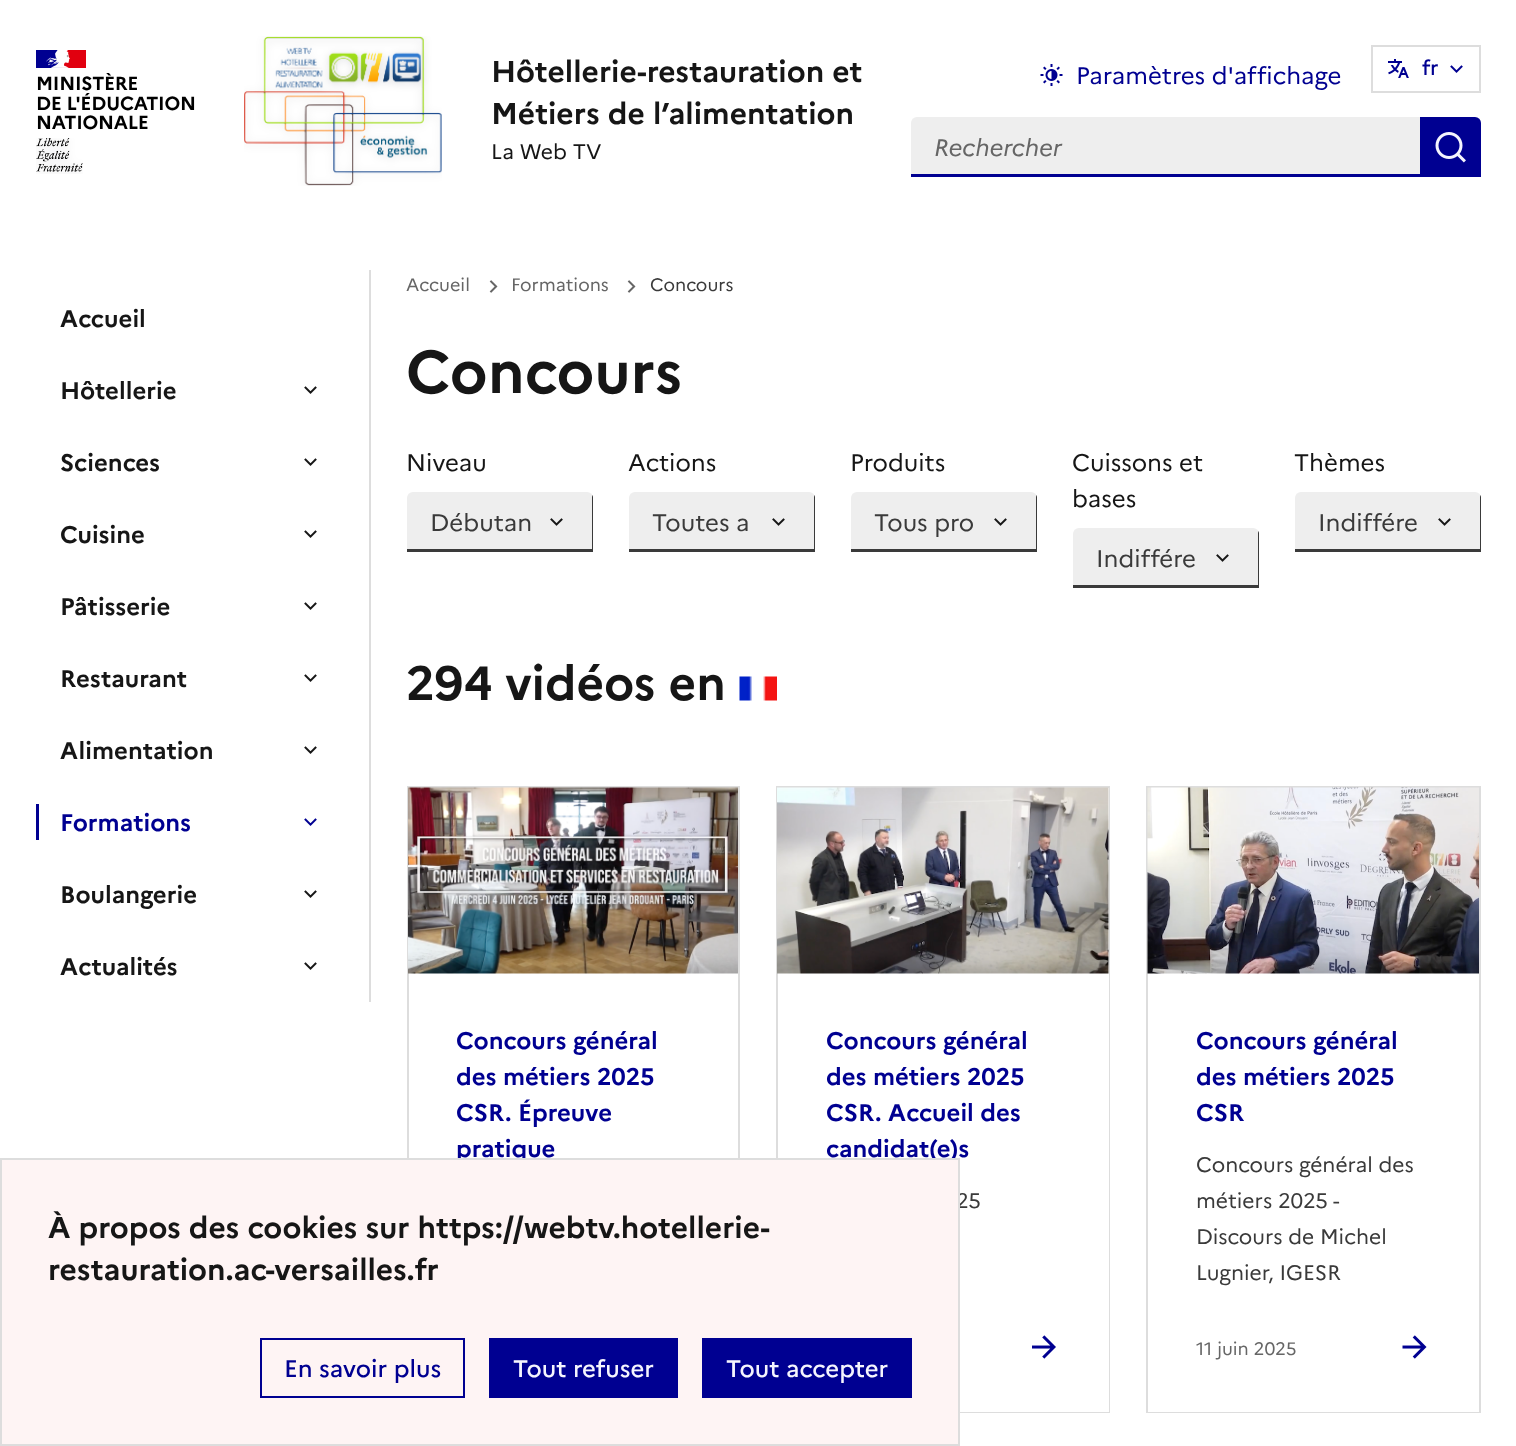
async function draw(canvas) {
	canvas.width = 1516;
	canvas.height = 1446;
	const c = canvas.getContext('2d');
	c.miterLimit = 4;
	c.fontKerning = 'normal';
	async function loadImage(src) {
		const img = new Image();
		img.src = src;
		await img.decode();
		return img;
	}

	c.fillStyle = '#fff';
	c.fillRect(0, 0, 1516, 1446);
	c.fillStyle = '#000091';
	c.fillRect(36, 50, 26, 18);
	c.fillStyle = '#e1000f';
	c.fillRect(62, 50, 24, 18);
	c.drawImage(await loadImage('img1.png'), 46, 50, 24, 18);
	c.letterSpacing = '-0.25px';
	c.font = 'bold 19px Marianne';
	c.fillStyle = '#000';
	for (const [text, x, y] of [
		['MINISTÈRE', 36, 90],
		['DE L\'ÉDUCATION', 36, 110],
		['NATIONALE', 36, 129],
	]) {
		c.fillText(text, x, y);
	}
	c.drawImage(await loadImage('img2.png'), 36, 138, 47, 36);
	c.drawImage(await loadImage('img3.png'), 244, 36, 198, 150);
	c.letterSpacing = '0px';
	c.font = 'bold 30px Marianne';
	c.fillStyle = '#161616';
	c.fillText('Hôtellerie-restauration et', 491, 82);
	c.fillText('Métiers de l’alimentation', 491, 124);
	c.font = '21px Marianne';
	c.fillText('La Web TV', 491, 159);
	c.drawImage(await loadImage('img4.png'), 1040, 64, 23, 22);
	c.font = '24px Marianne';
	c.fillStyle = '#000091';
	c.fillText('Paramètres d\'affichage', 1076, 84);
	c.strokeStyle = '#ddd';
	c.lineWidth = 2;
	c.strokeRect(1372, 46, 108, 46);
	c.drawImage(await loadImage('img5.png'), 1388, 59, 21, 19);
	c.font = '500 21px Marianne';
	c.fillText('fr', 1422, 75);
	c.drawImage(await loadImage('img6.png'), 1450, 65, 13, 8);
	c.fillStyle = '#eee';
	c.beginPath();
	c.roundRect(911, 117, 510, 60, [6, 0, 0, 0]);
	c.fill();
	c.fillStyle = '#000091';
	c.beginPath();
	c.moveTo(911, 174);
	c.lineTo(911, 177);
	c.lineTo(1421, 177);
	c.lineTo(1421, 117);
	c.lineTo(1420, 117);
	c.lineTo(1420, 174);
	c.closePath();
	c.fill();
	c.font = 'italic 24px Marianne';
	c.fillStyle = '#666';
	c.fillText('Rechercher', 934, 156);
	c.fillStyle = '#000091';
	c.beginPath();
	c.roundRect(1421, 117, 60, 60, [0, 6, 0, 0]);
	c.fill();
	c.drawImage(await loadImage('img7.png'), 1435, 132, 31, 31);
	c.fillStyle = '#ddd';
	c.fillRect(369, 270, 2, 732);
	c.font = 'bold 24px Marianne';
	c.fillStyle = '#161616';
	c.fillText('Accueil', 60, 327);
	c.fillText('Hôtellerie', 60, 399);
	c.drawImage(await loadImage('img8.png'), 304, 386, 13, 8);
	c.fillText('Sciences', 60, 471);
	c.drawImage(await loadImage('img8.png'), 304, 458, 13, 8);
	c.fillText('Cuisine', 60, 543);
	c.drawImage(await loadImage('img8.png'), 304, 530, 13, 8);
	c.fillText('Pâtisserie', 60, 615);
	c.drawImage(await loadImage('img8.png'), 304, 602, 13, 8);
	c.fillText('Restaurant', 60, 687);
	c.drawImage(await loadImage('img8.png'), 304, 674, 13, 8);
	c.fillText('Alimentation', 60, 759);
	c.drawImage(await loadImage('img8.png'), 304, 746, 13, 8);
	c.fillStyle = '#000091';
	c.fillRect(36, 804, 3, 36);
	c.fillText('Formations', 60, 831);
	c.drawImage(await loadImage('img6.png'), 304, 818, 13, 8);
	c.fillStyle = '#161616';
	c.fillText('Boulangerie', 60, 903);
	c.drawImage(await loadImage('img8.png'), 304, 890, 13, 8);
	c.fillText('Actualités', 60, 975);
	c.drawImage(await loadImage('img8.png'), 304, 962, 13, 8);
	c.font = '18px Marianne';
	c.fillStyle = '#666';
	c.fillText('Accueil', 406, 291);
	c.drawImage(await loadImage('img9.png'), 489, 280, 9, 13);
	c.fillText('Formations', 511, 291);
	c.drawImage(await loadImage('img9.png'), 627, 280, 9, 13);
	c.fillStyle = '#3a3a3a';
	c.fillText('Concours', 650, 291);
	c.font = 'bold 60px Marianne';
	c.fillStyle = '#161616';
	c.fillText('Concours', 406, 393);
	c.font = '24px Marianne';
	c.fillText('Niveau', 406, 471);
	c.fillStyle = '#eee';
	c.beginPath();
	c.roundRect(407, 492, 186, 60, [6, 6, 0, 0]);
	c.fill();
	c.drawImage(await loadImage('img10.png'), 550, 518, 13, 8);
	c.fillStyle = '#3a3a3a';
	c.beginPath();
	c.moveTo(407, 549);
	c.lineTo(407, 552);
	c.lineTo(593, 552);
	c.lineTo(593, 498);
	c.bezierCurveTo(593, 497, 593, 496, 592, 495);
	c.lineTo(592, 549);
	c.closePath();
	c.fill();
	c.fillText('Débutan', 430, 531);
	c.fillStyle = '#161616';
	c.fillText('Actions', 628, 471);
	c.fillStyle = '#eee';
	c.beginPath();
	c.roundRect(629, 492, 186, 60, [6, 6, 0, 0]);
	c.fill();
	c.drawImage(await loadImage('img10.png'), 772, 518, 13, 8);
	c.fillStyle = '#3a3a3a';
	c.beginPath();
	c.moveTo(629, 549);
	c.lineTo(629, 552);
	c.lineTo(815, 552);
	c.lineTo(815, 498);
	c.bezierCurveTo(815, 497, 815, 496, 814, 495);
	c.lineTo(814, 549);
	c.closePath();
	c.fill();
	c.fillText('Toutes a', 652, 531);
	c.fillStyle = '#161616';
	c.fillText('Produits', 850, 471);
	c.fillStyle = '#eee';
	c.beginPath();
	c.roundRect(851, 492, 186, 60, [6, 6, 0, 0]);
	c.fill();
	c.drawImage(await loadImage('img10.png'), 994, 518, 13, 8);
	c.fillStyle = '#3a3a3a';
	c.beginPath();
	c.moveTo(851, 549);
	c.lineTo(851, 552);
	c.lineTo(1037, 552);
	c.lineTo(1037, 498);
	c.bezierCurveTo(1037, 497, 1037, 496, 1036, 495);
	c.lineTo(1036, 549);
	c.closePath();
	c.fill();
	c.fillText('Tous pro', 874, 531);
	c.fillStyle = '#161616';
	c.fillText('Cuissons et', 1072, 471);
	c.fillText('bases', 1072, 507);
	c.fillStyle = '#eee';
	c.beginPath();
	c.roundRect(1073, 528, 186, 60, [6, 6, 0, 0]);
	c.fill();
	c.drawImage(await loadImage('img10.png'), 1216, 554, 13, 8);
	c.fillStyle = '#3a3a3a';
	c.beginPath();
	c.moveTo(1073, 585);
	c.lineTo(1073, 588);
	c.lineTo(1259, 588);
	c.lineTo(1259, 534);
	c.bezierCurveTo(1259, 533, 1259, 532, 1258, 531);
	c.lineTo(1258, 585);
	c.closePath();
	c.fill();
	c.fillText('Indiffére', 1096, 567);
	c.fillStyle = '#161616';
	c.fillText('Thèmes', 1294, 471);
	c.fillStyle = '#eee';
	c.beginPath();
	c.roundRect(1295, 492, 186, 60, [6, 6, 0, 0]);
	c.fill();
	c.drawImage(await loadImage('img10.png'), 1438, 518, 13, 8);
	c.fillStyle = '#3a3a3a';
	c.beginPath();
	c.moveTo(1295, 549);
	c.lineTo(1295, 552);
	c.lineTo(1481, 552);
	c.lineTo(1481, 498);
	c.bezierCurveTo(1481, 497, 1481, 496, 1480, 495);
	c.lineTo(1480, 549);
	c.closePath();
	c.fill();
	c.fillText('Indiffére', 1318, 531);
	c.font = 'bold 48px Marianne';
	c.fillStyle = '#161616';
	c.fillText('294 vidéos en', 406, 700);
	c.drawImage(await loadImage('img11.png'), 739, 676, 38, 25);
	for (const [x, y, w, h, color] of [
		[407, 786, 333, 2, '#ddd'],
		[738, 786, 2, 372, '#ddd'],
		[407, 786, 2, 372, '#ddd'],
	]) {
		c.fillStyle = color;
		c.fillRect(x, y, w, h);
	}
	c.drawImage(await loadImage('img12.png'), 408, 787, 330, 187);
	c.font = 'bold 24px Marianne';
	c.fillStyle = '#000091';
	for (const [text, x, y] of [
		['Concours général', 456, 1049],
		['des métiers 2025', 456, 1085],
		['CSR. Épreuve', 456, 1121],
		['pratique', 456, 1157],
	]) {
		c.fillText(text, x, y);
	}
	for (const [x, y, w, h, color] of [
		[776, 786, 334, 2, '#ddd'],
		[1109, 786, 1, 627, '#ddd'],
		[776, 786, 2, 372, '#ddd'],
		[960, 1412, 150, 1, '#ddd'],
	]) {
		c.fillStyle = color;
		c.fillRect(x, y, w, h);
	}
	c.drawImage(await loadImage('img13.png'), 777, 787, 332, 187);
	c.fillStyle = '#000091';
	for (const [text, x, y] of [
		['Concours général', 826, 1049],
		['des métiers 2025', 826, 1085],
		['CSR. Accueil des', 826, 1121],
		['candidat(e)s', 826, 1157],
	]) {
		c.fillText(text, x, y);
	}
	c.drawImage(await loadImage('img14.png'), 1032, 1335, 24, 24);
	c.font = '21px Marianne';
	c.fillStyle = '#3a3a3a';
	c.fillText('25', 956, 1208);
	for (const [x, y, w, h, color] of [
		[1146, 786, 335, 2, '#ddd'],
		[1479, 786, 2, 627, '#ddd'],
		[1146, 786, 2, 627, '#ddd'],
		[1146, 1412, 335, 1, '#ddd'],
	]) {
		c.fillStyle = color;
		c.fillRect(x, y, w, h);
	}
	c.drawImage(await loadImage('img15.png'), 1147, 787, 332, 187);
	c.font = 'bold 24px Marianne';
	c.fillStyle = '#000091';
	for (const [text, x, y] of [
		['Concours général', 1196, 1049],
		['des métiers 2025', 1196, 1085],
		['CSR', 1196, 1121],
	]) {
		c.fillText(text, x, y);
	}
	c.drawImage(await loadImage('img16.png'), 1402, 1335, 25, 24);
	c.font = '21px Marianne';
	c.fillStyle = '#3a3a3a';
	for (const [text, x, y] of [
		['Concours général des', 1196, 1172],
		['métiers 2025 -', 1196, 1208],
		['Discours de Michel', 1196, 1244],
		['Lugnier, IGESR', 1196, 1280],
	]) {
		c.fillText(text, x, y);
	}
	c.font = '18px Marianne';
	c.fillStyle = '#666';
	c.fillText('11 juin 2025', 1196, 1355);
	c.fillStyle = '#fef4f4';
	c.beginPath();
	c.rect(1, 1159, 958, 286);
	c.fill();
	c.stroke();
	c.font = 'bold 30px Marianne';
	c.fillStyle = '#161616';
	c.fillText('À propos des cookies sur https://webtv.hotellerie-', 48, 1238);
	c.fillText('restauration.ac-versailles.fr', 48, 1280);
	c.strokeStyle = '#000091';
	c.strokeRect(261, 1339, 203, 58);
	c.font = '500 24px Marianne';
	c.fillStyle = '#000091';
	c.fillText('En savoir plus', 284, 1377);
	c.fillRect(489, 1338, 189, 60);
	c.fillStyle = '#f5f5fe';
	c.fillText('Tout refuser', 513, 1377);
	c.fillStyle = '#000091';
	c.fillRect(702, 1338, 210, 60);
	c.fillStyle = '#f5f5fe';
	c.fillText('Tout accepter', 726, 1377);
}

draw(document.querySelector('canvas'));
